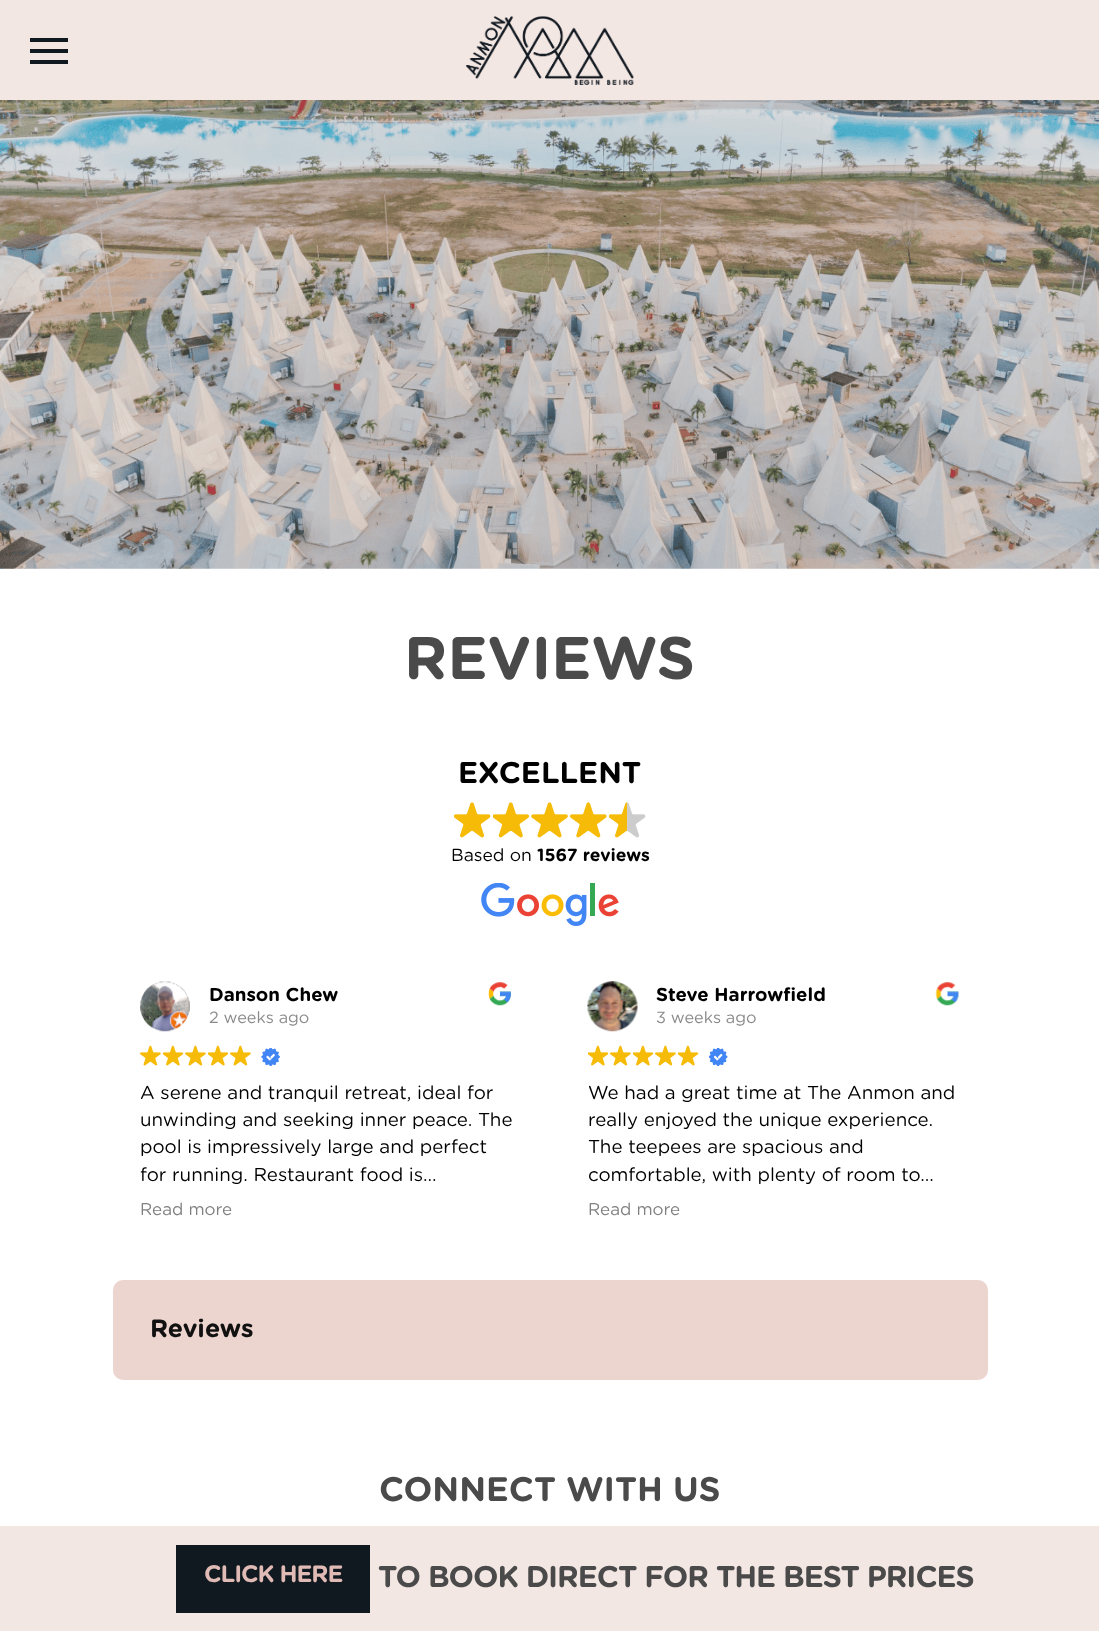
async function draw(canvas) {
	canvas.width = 1099;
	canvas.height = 1632;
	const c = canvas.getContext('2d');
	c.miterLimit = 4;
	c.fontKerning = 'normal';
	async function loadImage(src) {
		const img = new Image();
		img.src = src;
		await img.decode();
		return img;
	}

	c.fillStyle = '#fff';
	c.fillRect(0, 0, 1099, 1632);
	for (const [x, y, w, h, color] of [
		[0, 0, 1099, 100, '#f3e7e3'],
		[30, 38, 38, 4, '#101820'],
		[30, 49, 38, 4, '#101820'],
		[30, 60, 38, 4, '#101820'],
	]) {
		c.fillStyle = color;
		c.fillRect(x, y, w, h);
	}
	c.drawImage(await loadImage('img1.png'), 466, 16, 168, 69);
	c.drawImage(await loadImage('img2.png'), 0, 100, 1099, 469);
	c.font = 'bold 60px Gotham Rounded';
	c.fillStyle = '#4a4a4a';
	c.fillText('REVIEWS', 404, 679);
	c.font = 'bold 30px Gotham Rounded';
	c.fillStyle = '#000';
	c.fillText('EXCELLENT', 458, 783);
	c.drawImage(await loadImage('img3.png'), 454, 802, 37, 36);
	c.drawImage(await loadImage('img4.png'), 493, 802, 37, 36);
	c.drawImage(await loadImage('img5.png'), 531, 802, 37, 36);
	c.drawImage(await loadImage('img6.png'), 570, 802, 37, 36);
	c.drawImage(await loadImage('img7.png'), 609, 802, 37, 36);
	c.font = '17.5px Gotham Rounded';
	c.fillText('Based on', 451, 861);
	c.font = 'bold 17.5px Gotham Rounded';
	c.fillText('1567 reviews', 537, 861);
	c.drawImage(await loadImage('img8.png'), 481, 883, 138, 43);
	c.drawImage(await loadImage('img9.png'), 140, 981, 50, 51);
	c.font = 'bold 18.75px Gotham Rounded';
	c.fillText('Danson Chew', 209, 1001);
	c.font = '16.25px Gotham Rounded';
	c.fillStyle = '#8a8a8a';
	c.fillText('2 weeks ago', 209, 1023);
	c.drawImage(await loadImage('img10.png'), 488, 982, 23, 24);
	c.drawImage(await loadImage('img11.png'), 140, 1045, 21, 21);
	c.drawImage(await loadImage('img12.png'), 163, 1045, 21, 21);
	c.drawImage(await loadImage('img11.png'), 185, 1045, 21, 21);
	c.drawImage(await loadImage('img12.png'), 208, 1045, 21, 21);
	c.drawImage(await loadImage('img11.png'), 230, 1045, 21, 21);
	c.drawImage(await loadImage('img13.png'), 261, 1048, 19, 18);
	c.font = '18.75px Gotham Rounded';
	c.fillStyle = '#000';
	for (const [text, x, y] of [
		['A serene and tranquil retreat, ideal for', 140, 1099],
		['unwinding and seeking inner peace. The', 140, 1126],
		['pool is impressively large and perfect', 140, 1153],
		['for running. Restaurant food is…', 140, 1181],
	]) {
		c.fillText(text, x, y);
	}
	c.font = '17px Gotham Rounded';
	c.fillStyle = '#808080';
	c.fillText('Read more', 140, 1215);
	c.drawImage(await loadImage('img14.png'), 587, 981, 51, 51);
	c.font = 'bold 18.75px Gotham Rounded';
	c.fillStyle = '#000';
	c.fillText('Steve Harrowfield', 656, 1001);
	c.font = '16.25px Gotham Rounded';
	c.fillStyle = '#8a8a8a';
	c.fillText('3 weeks ago', 656, 1023);
	c.drawImage(await loadImage('img15.png'), 935, 982, 24, 24);
	c.drawImage(await loadImage('img12.png'), 588, 1045, 21, 21);
	c.drawImage(await loadImage('img11.png'), 610, 1045, 21, 21);
	c.drawImage(await loadImage('img12.png'), 633, 1045, 21, 21);
	c.drawImage(await loadImage('img11.png'), 655, 1045, 21, 21);
	c.drawImage(await loadImage('img12.png'), 678, 1045, 21, 21);
	c.drawImage(await loadImage('img16.png'), 709, 1048, 19, 18);
	c.font = '18.75px Gotham Rounded';
	c.fillStyle = '#000';
	for (const [text, x, y] of [
		['We had a great time at The Anmon and', 588, 1099],
		['really enjoyed the unique experience.', 588, 1126],
		['The teepees are spacious and', 588, 1153],
		['comfortable, with plenty of room to…', 588, 1181],
	]) {
		c.fillText(text, x, y);
	}
	c.font = '17px Gotham Rounded';
	c.fillStyle = '#808080';
	c.fillText('Read more', 588, 1215);
	c.fillStyle = '#ecd5ce';
	c.beginPath();
	c.roundRect(113, 1280, 875, 100, 10);
	c.fill();
	c.font = 'bold 25px Gotham Rounded';
	c.fillStyle = '#111';
	c.fillText('Reviews', 150, 1337);
	c.font = 'bold 34px Gotham Rounded';
	c.fillStyle = '#4a4a4a';
	c.fillText('CONNECT WITH US', 379, 1501);
	c.fillStyle = '#f3e7e3';
	c.fillRect(0, 1526, 1099, 105);
	c.fillStyle = '#101820';
	c.fillRect(176, 1545, 194, 68);
	c.letterSpacing = '-1.05px';
	c.font = 'bold 23.75px Gotham Rounded';
	c.fillStyle = '#e0bab4';
	c.fillText('CLICK HERE', 204, 1582);
	c.font = 'bold 30px Gotham Rounded';
	c.fillStyle = '#4a4a4a';
	c.fillText('TO BOOK DIRECT FOR THE BEST PRICES', 378, 1587);
}

draw(document.querySelector('canvas'));
